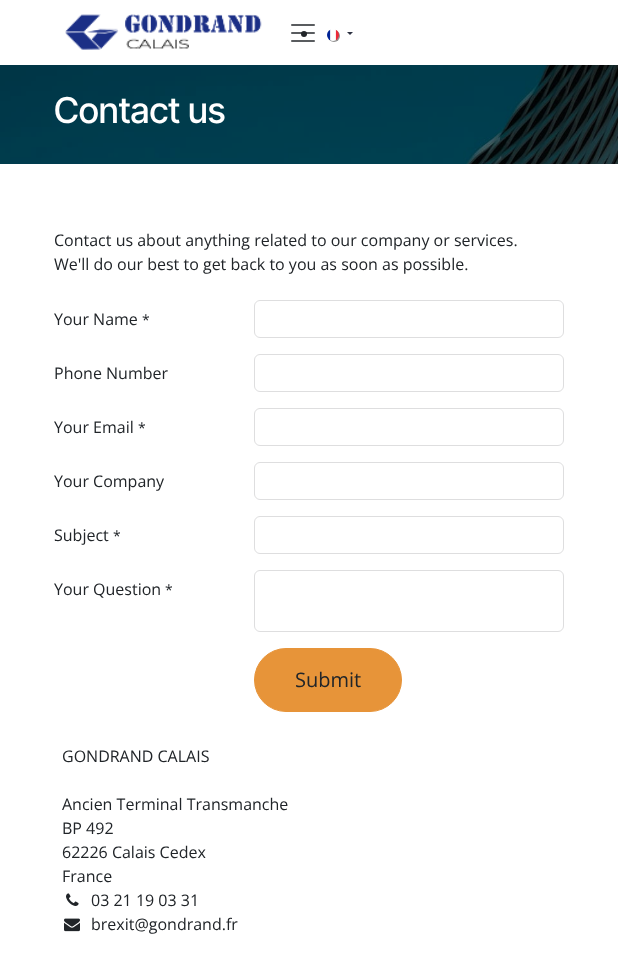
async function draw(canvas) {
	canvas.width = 618;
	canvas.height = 974;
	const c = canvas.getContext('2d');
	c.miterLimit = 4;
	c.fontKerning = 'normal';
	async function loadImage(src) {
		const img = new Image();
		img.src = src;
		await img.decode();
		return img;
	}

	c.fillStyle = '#fff';
	c.fillRect(0, 0, 618, 974);
	c.drawImage(await loadImage('img1.png'), 65, 14, 197, 36);
	c.drawImage(await loadImage('img2.png'), 291, 24, 24, 18);
	c.fillStyle = '#212529';
	c.beginPath();
	c.arc(304, 34, 3, 0, 2 * Math.PI);
	c.fill();
	c.fillStyle = '#0000006e';
	c.filter = 'blur(0.5px)';
	c.beginPath();
	c.roundRect(328, 30, 12, 12, 6);
	c.fill();
	c.filter = 'none';
	c.drawImage(await loadImage('img3.png'), 327, 29, 12, 12);
	c.fillStyle = '#2d3142';
	c.beginPath();
	c.moveTo(347, 32);
	c.lineTo(353, 32);
	c.lineTo(350, 35);
	c.closePath();
	c.fill();
	c.drawImage(await loadImage('img4.png'), 0, 65, 618, 99);
	c.font = '500 35.75px Inter Tight';
	c.fillStyle = '#fff';
	c.fillText('Contact us', 54, 123);
	c.font = '16px Open Sans';
	c.fillStyle = '#212529';
	for (const [text, x, y] of [
		['Contact us about anything related to our company or services.', 54, 246],
		['We\'ll do our best to get back to you as soon as possible.', 54, 270],
		['Your Name', 54, 325],
	]) {
		c.fillText(text, x, y);
	}
	c.font = '14px Open Sans';
	c.fillText('*', 142, 325);
	c.beginPath();
	c.roundRect(254.5, 300.5, 309, 37, 5.5);
	c.strokeStyle = '#dededf';
	c.stroke();
	c.font = '16px Open Sans';
	c.fillText('Phone Number', 54, 379);
	c.beginPath();
	c.roundRect(254.5, 354.5, 309, 37, 5.5);
	c.stroke();
	c.fillText('Your Email', 54, 433);
	c.font = '14px Open Sans';
	c.fillText('*', 138, 433);
	c.beginPath();
	c.roundRect(254.5, 408.5, 309, 37, 5.5);
	c.stroke();
	c.font = '16px Open Sans';
	c.fillText('Your Company', 54, 487);
	c.beginPath();
	c.roundRect(254.5, 462.5, 309, 37, 5.5);
	c.stroke();
	c.fillText('Subject', 54, 541);
	c.font = '14px Open Sans';
	c.fillText('*', 113, 541);
	c.beginPath();
	c.roundRect(254.5, 516.5, 309, 37, 5.5);
	c.stroke();
	c.font = '16px Open Sans';
	c.fillText('Your Question', 54, 595);
	c.font = '14px Open Sans';
	c.fillText('*', 165, 595);
	c.beginPath();
	c.roundRect(254.5, 570.5, 309, 61, 5.5);
	c.stroke();
	c.fillStyle = '#e79439';
	c.beginPath();
	c.roundRect(254.5, 648.5, 147, 63, 31.5);
	c.fill();
	c.strokeStyle = '#e79439';
	c.stroke();
	c.font = '20px Open Sans';
	c.fillStyle = '#212529';
	c.fillText('Submit', 295, 687);
	c.font = '16px Open Sans';
	for (const [text, x, y] of [
		['GONDRAND CALAIS', 62, 762],
		['Ancien Terminal Transmanche', 62, 810],
		['BP 492', 62, 834],
		['62226 Calais Cedex', 62, 858],
		['France', 62, 882],
	]) {
		c.fillText(text, x, y);
	}
	c.drawImage(await loadImage('img5.png'), 66, 893, 13, 13);
	c.fillText('03 21 19 03 31', 91, 906);
	c.drawImage(await loadImage('img6.png'), 64, 918, 16, 14);
	c.fillText('brexit@gondrand.fr', 91, 930);
}

draw(document.querySelector('canvas'));
